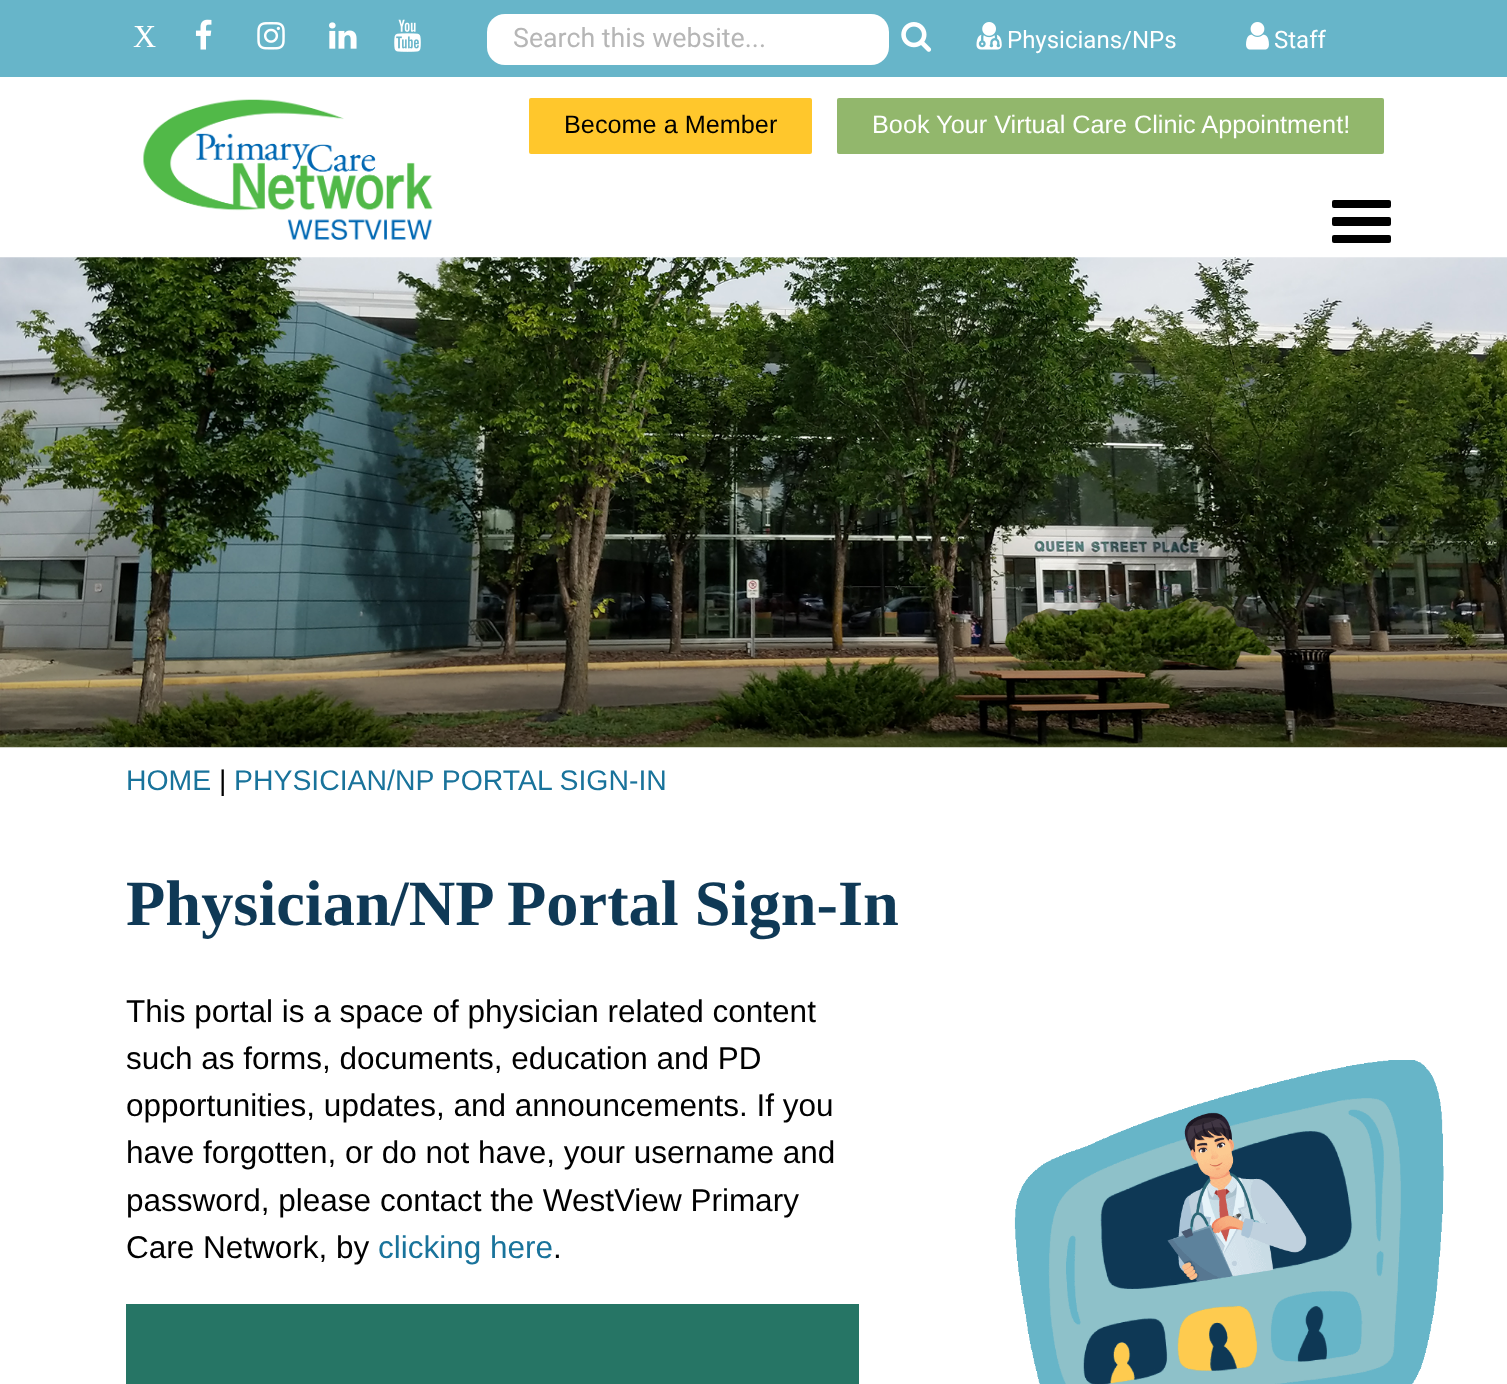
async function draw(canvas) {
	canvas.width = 1507;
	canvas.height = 1384;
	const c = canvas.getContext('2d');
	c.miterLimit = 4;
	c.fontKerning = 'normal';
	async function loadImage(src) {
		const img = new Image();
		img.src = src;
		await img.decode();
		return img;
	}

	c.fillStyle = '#fff';
	c.fillRect(0, 0, 1507, 1384);
	c.fillStyle = '#67b5c9';
	c.fillRect(0, 0, 1507, 77);
	c.font = '32px Liberation Serif';
	c.fillStyle = '#fff';
	c.fillText('X', 133, 47);
	c.drawImage(await loadImage('img1.png'), 195, 19, 17, 31);
	c.drawImage(await loadImage('img2.png'), 257, 22, 28, 28);
	c.drawImage(await loadImage('img3.png'), 329, 22, 28, 27);
	c.drawImage(await loadImage('img4.png'), 394, 19, 27, 33);
	c.beginPath();
	c.roundRect(487, 14, 402, 51, 18);
	c.fill();
	c.font = '26.75px Roboto';
	c.fillStyle = '#b6b6b6';
	c.fillText('Search this website...', 513, 47);
	c.drawImage(await loadImage('img5.png'), 901, 22, 31, 30);
	c.drawImage(await loadImage('img6.png'), 976, 22, 26, 28);
	c.font = '24px Roboto';
	c.fillStyle = '#fff';
	c.fillText('Physicians/NPs', 1007, 48);
	c.drawImage(await loadImage('img7.png'), 1246, 22, 23, 28);
	c.fillText('Staff', 1274, 48);
	c.drawImage(await loadImage('img8.png'), 143, 99, 290, 141);
	c.fillStyle = '#000';
	c.beginPath();
	c.roundRect(1332, 200, 59, 8, 2);
	c.fill();
	c.beginPath();
	c.roundRect(1332, 217, 59, 9, 2);
	c.fill();
	c.beginPath();
	c.roundRect(1332, 235, 59, 8, 2);
	c.fill();
	c.fillStyle = '#ffc72c';
	c.beginPath();
	c.roundRect(529, 98, 283, 56, 2);
	c.fill();
	c.font = '25.25px Liberation Sans';
	c.fillStyle = '#000';
	c.fillText('Become a Member', 564, 133);
	c.fillStyle = '#92b76c';
	c.beginPath();
	c.roundRect(837, 98, 547, 56, 2);
	c.fill();
	c.fillStyle = '#fff';
	c.fillText('Book Your Virtual Care Clinic Appointment!', 872, 133);
	c.drawImage(await loadImage('img9.png'), 0, 257, 1507, 491);
	c.font = '28.4px Liberation Sans';
	c.fillStyle = '#19739b';
	c.fillText('HOME', 126, 790);
	c.fillStyle = '#000';
	c.fillText('|', 219, 790);
	c.fillStyle = '#19739b';
	c.fillText('PHYSICIAN/NP PORTAL SIGN-IN', 234, 790);
	c.font = 'bold 64.4px Liberation Serif';
	c.fillStyle = '#0f3956';
	c.fillText('Physician/NP Portal Sign-In', 126, 925);
	c.font = '31.5px Liberation Sans';
	c.fillStyle = '#000';
	for (const [text, x, y] of [
		['This portal is a space of physician related content', 126, 1022],
		['such as forms, documents, education and PD', 126, 1069],
		['opportunities, updates, and announcements. If you', 126, 1116],
		['have forgotten, or do not have, your username and', 126, 1163],
		['password, please contact the WestView Primary', 126, 1211],
		['Care Network, by', 126, 1258],
	]) {
		c.fillText(text, x, y);
	}
	c.fillStyle = '#19739b';
	c.fillText('clicking here', 378, 1258);
	c.fillStyle = '#000';
	c.fillText('.', 553, 1258);
	c.fillStyle = '#267565';
	c.fillRect(126, 1304, 733, 80);
	c.drawImage(await loadImage('img10.png'), 1014, 1060, 430, 324);
}

draw(document.querySelector('canvas'));
